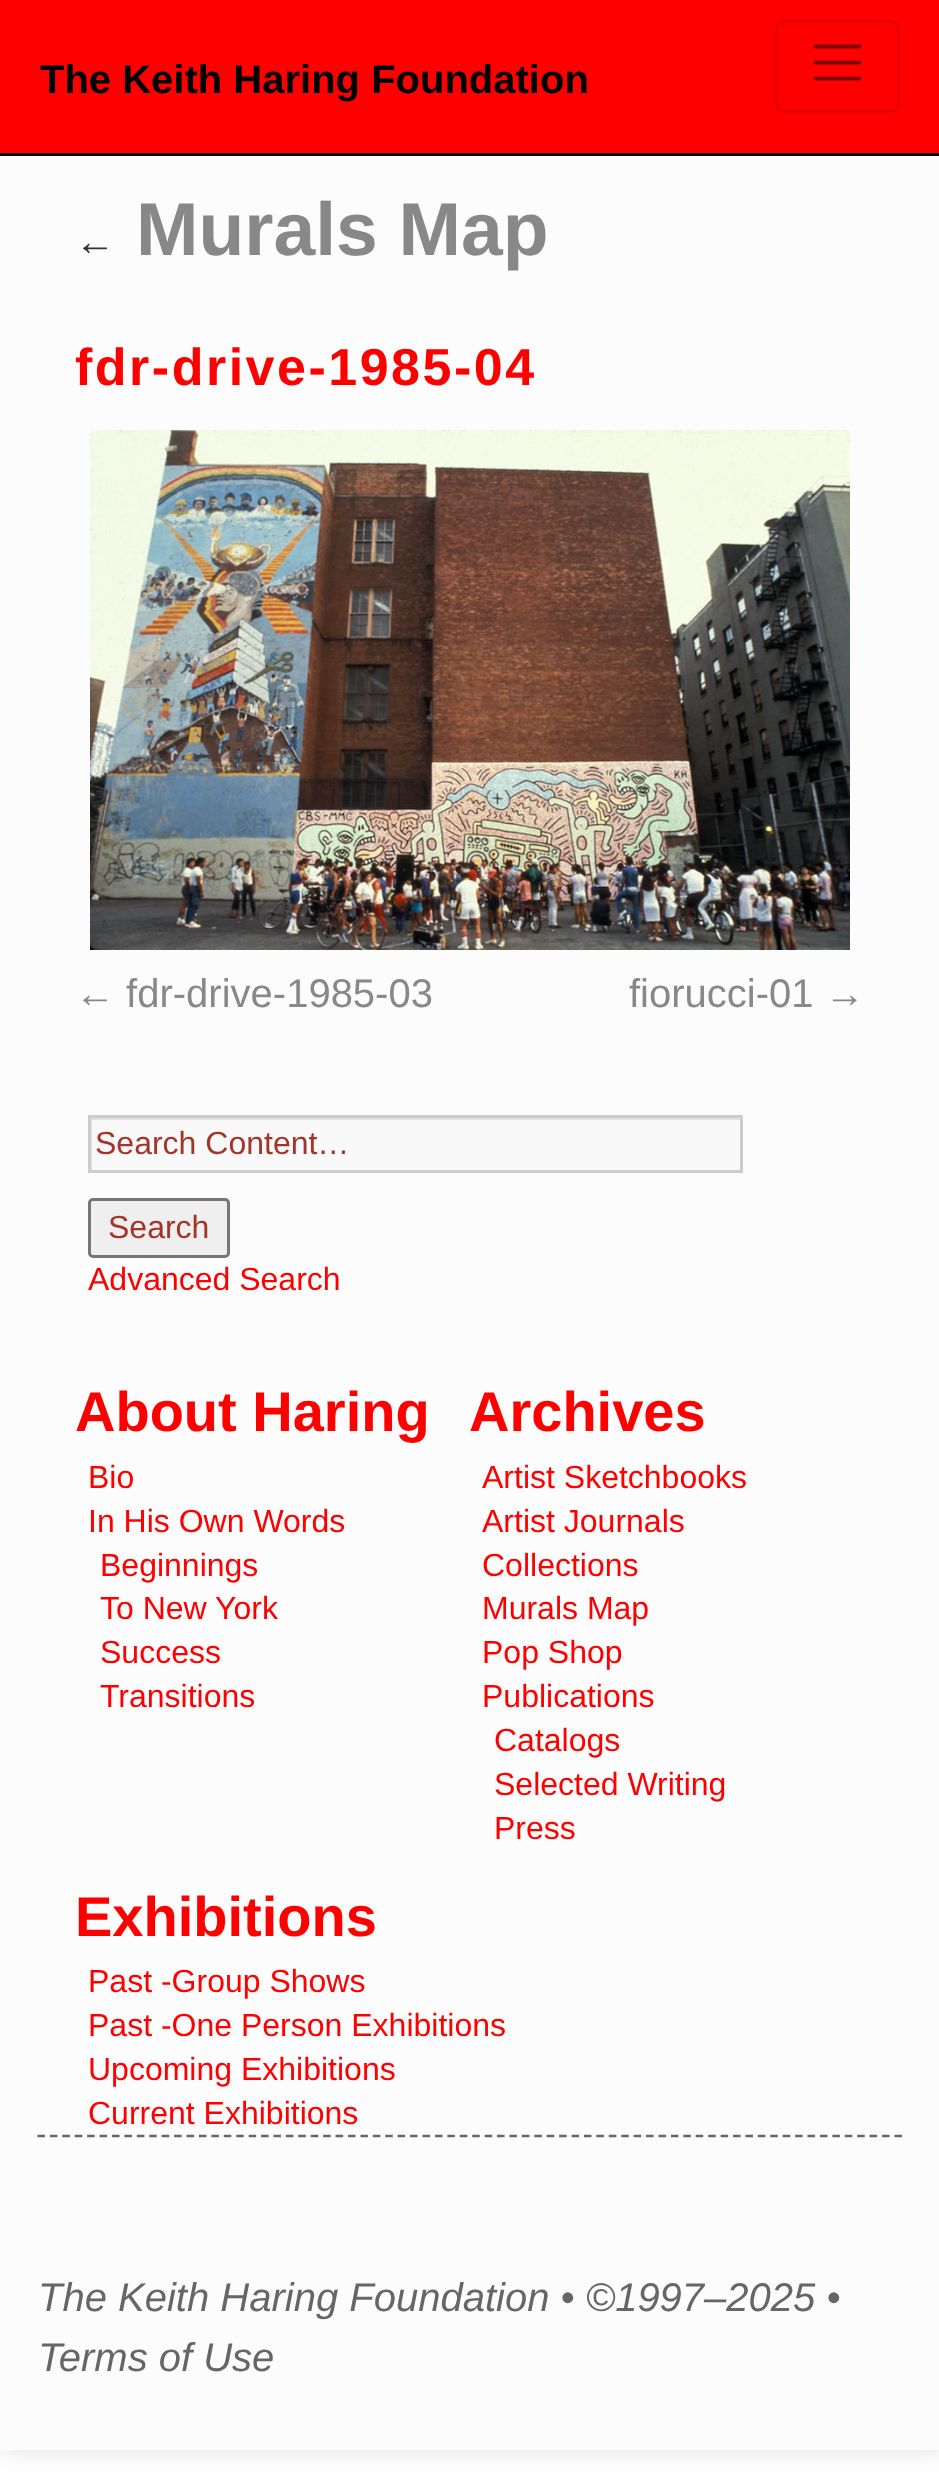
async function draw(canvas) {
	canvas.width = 939;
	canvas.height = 2485;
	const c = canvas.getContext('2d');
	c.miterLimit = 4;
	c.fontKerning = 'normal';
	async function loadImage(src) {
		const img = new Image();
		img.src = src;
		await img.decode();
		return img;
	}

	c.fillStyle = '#fff';
	c.fillRect(0, 0, 939, 2485);
	c.fillStyle = '#0000001a';
	c.filter = 'blur(11px)';
	c.beginPath();
	c.rect(3, 3, 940, 2450);
	c.fill();
	c.filter = 'none';
	c.fillStyle = '#f00';
	c.fillRect(0, 0, 939, 153);
	c.fillStyle = '#000';
	c.fillRect(0, 153, 939, 3);
	c.font = 'bold 40px Liberation Sans';
	c.fillText('The Keith Haring Foundation', 40, 93);
	c.beginPath();
	c.roundRect(776.5, 21.5, 122, 90, 8.5);
	c.strokeStyle = '#e60000';
	c.lineWidth = 3;
	c.stroke();
	c.beginPath();
	c.moveTo(815.5, 46.5);
	c.lineTo(859.5, 46.5);
	c.moveTo(815.5, 62.5);
	c.lineTo(859.5, 62.5);
	c.moveTo(815.5, 78.5);
	c.lineTo(859.5, 78.5);
	c.strokeStyle = '#800000';
	c.lineWidth = 4;
	c.lineCap = 'round';
	c.stroke();
	c.fillStyle = '#fcfcfc';
	c.fillRect(0, 156, 939, 2294);
	c.font = 'italic 40px Liberation Sans';
	c.fillStyle = '#333';
	c.fillText('←', 75, 255);
	c.font = 'bold 75px Liberation Sans';
	c.fillStyle = '#888';
	c.fillText('Murals Map', 136, 255);
	c.letterSpacing = '2.5px';
	c.font = 'bold 52px Liberation Sans';
	c.fillStyle = '#f00';
	c.fillText('fdr-drive-1985-04', 75, 385);
	c.drawImage(await loadImage('img1.png'), 90, 430, 760, 520);
	c.letterSpacing = '0px';
	c.font = '40px Liberation Sans';
	c.fillStyle = '#888';
	c.fillText('← fdr-drive-1985-03', 75, 1007);
	c.fillText('fiorucci-01 →', 629, 1007);
	c.fillStyle = '#f9f9f9';
	c.fillRect(92, 1120, 648, 50);
	c.save();
	c.beginPath();
	c.rect(90, 1118, 650, 52);
	c.clip();
	c.fillStyle = '#e0e0e0';
	c.beginPath();
	c.moveTo(-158, 870);
	c.lineTo(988, 870);
	c.lineTo(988, 1418);
	c.lineTo(-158, 1418);
	c.closePath();
	c.moveTo(92, 1120);
	c.lineTo(742, 1120);
	c.lineTo(742, 1172);
	c.lineTo(92, 1172);
	c.closePath();
	c.fill('evenodd');
	c.restore();
	c.strokeStyle = '#ccc';
	c.lineWidth = 3;
	c.strokeRect(89.5, 1116.5, 652, 55);
	c.font = '32px Liberation Sans';
	c.fillStyle = '#a43329';
	c.fillText('Search Content…', 95, 1154);
	c.fillStyle = '#efefef';
	c.beginPath();
	c.roundRect(89.5, 1199.5, 139, 57, 3.5);
	c.fill();
	c.strokeStyle = '#767676';
	c.stroke();
	c.fillStyle = '#a43329';
	c.fillText('Search', 108, 1238);
	c.fillStyle = '#f00';
	c.fillText('Advanced Search', 88, 1290);
	c.font = 'bold 56px Liberation Sans';
	c.fillText('About Haring', 75, 1431);
	c.font = '32px Liberation Sans';
	for (const [text, x, y] of [
		['Bio', 88, 1488],
		['In His Own Words', 88, 1532],
		['Beginnings', 100, 1576],
		['To New York', 100, 1619],
		['Success', 100, 1663],
		['Transitions', 100, 1707],
	]) {
		c.fillText(text, x, y);
	}
	c.font = 'bold 56px Liberation Sans';
	c.fillText('Archives', 469, 1431);
	c.font = '32px Liberation Sans';
	for (const [text, x, y] of [
		['Artist Sketchbooks', 482, 1488],
		['Artist Journals', 482, 1532],
		['Collections', 482, 1576],
		['Murals Map', 482, 1619],
		['Pop Shop', 482, 1663],
		['Publications', 482, 1707],
		['Catalogs', 494, 1751],
		['Selected Writing', 494, 1795],
		['Press', 494, 1839],
	]) {
		c.fillText(text, x, y);
	}
	c.font = 'bold 56px Liberation Sans';
	c.fillText('Exhibitions', 75, 1936);
	c.font = '32px Liberation Sans';
	for (const [text, x, y] of [
		['Past -Group Shows', 88, 1992],
		['Past -One Person Exhibitions', 88, 2036],
		['Upcoming Exhibitions', 88, 2080],
		['Current Exhibitions', 88, 2124],
	]) {
		c.fillText(text, x, y);
	}
	c.beginPath();
	c.moveTo(37.5, 2136);
	c.lineTo(902.5, 2136);
	c.strokeStyle = '#666';
	c.lineWidth = 2.5;
	c.lineCap = 'butt';
	c.setLineDash([7.5, 4.92]);
	c.stroke();
	c.font = 'italic 40px Liberation Sans';
	c.fillStyle = '#666';
	c.fillText('The Keith Haring Foundation • ©1997–2025 •', 38, 2311);
	c.fillText('Terms of Use', 38, 2371);
}

draw(document.querySelector('canvas'));
